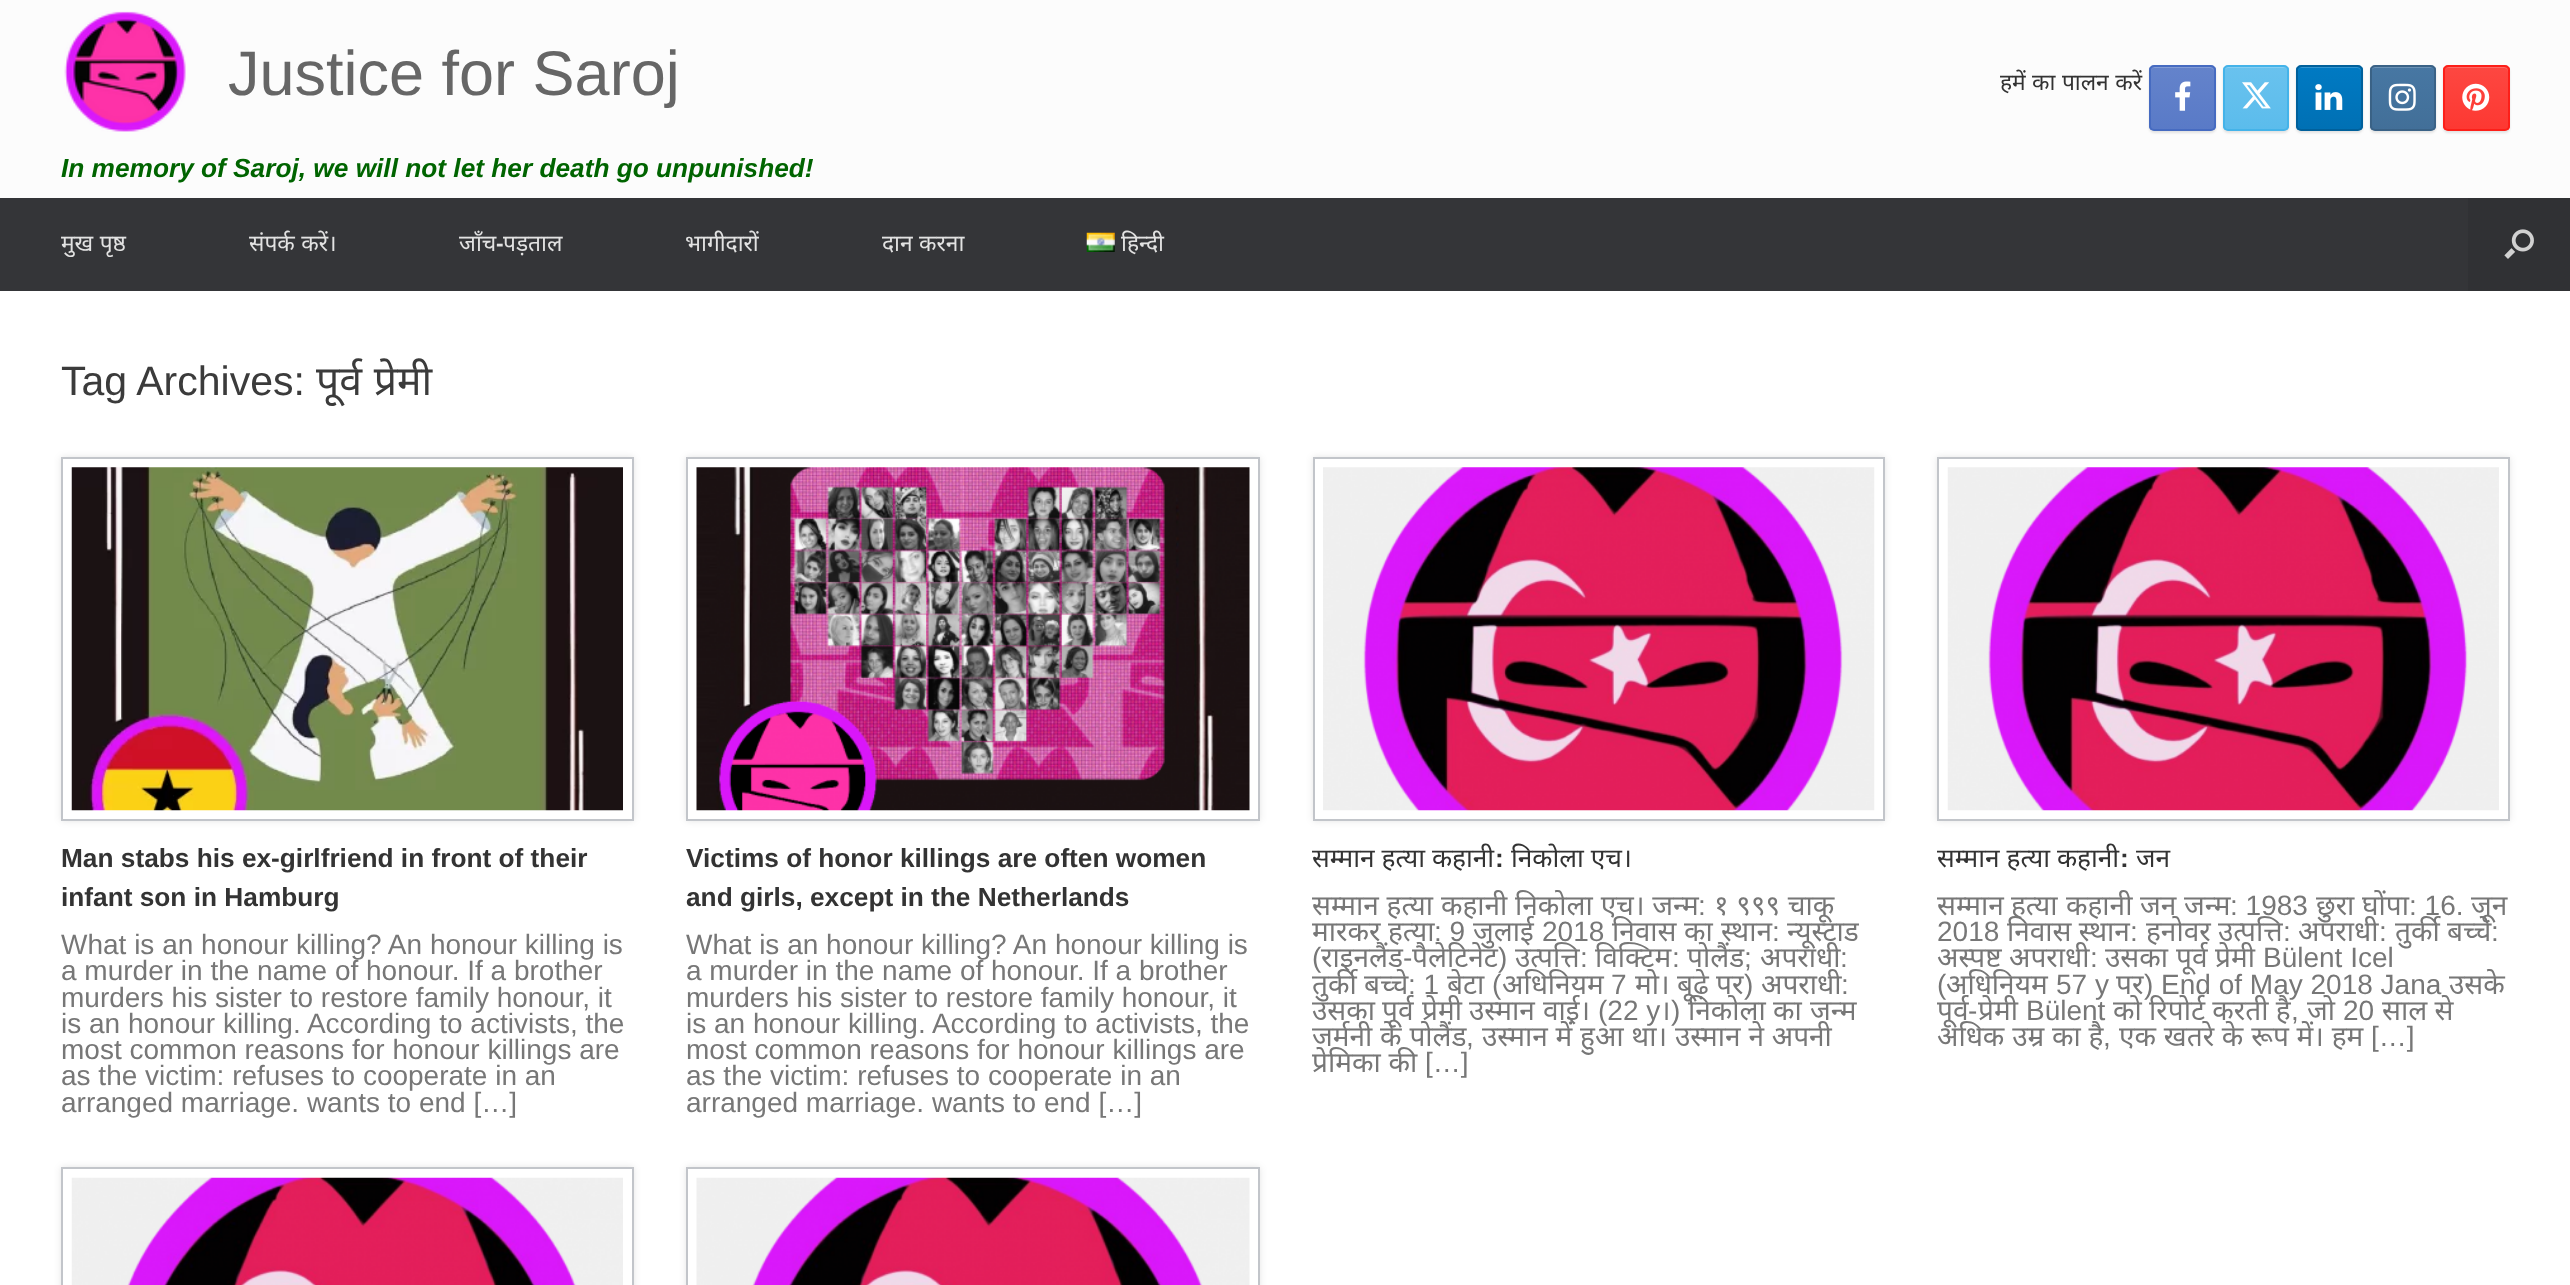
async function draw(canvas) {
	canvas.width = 2570;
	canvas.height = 1285;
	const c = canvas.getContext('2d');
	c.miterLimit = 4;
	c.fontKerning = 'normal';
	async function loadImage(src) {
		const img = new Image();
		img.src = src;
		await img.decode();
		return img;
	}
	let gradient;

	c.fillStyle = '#fcfcfc';
	c.fillRect(0, 0, 2570, 1285);
	c.drawImage(await loadImage('img1.png'), 64, 11, 122, 121);
	c.font = '63px Liberation Sans';
	c.fillStyle = '#666';
	c.fillText('Justice for Saroj', 228, 95);
	c.font = 'italic bold 26.25px Liberation Sans';
	c.fillStyle = '#006400';
	c.fillText('In memory of Saroj, we will not let her death go unpunished!', 61, 177);
	c.wordSpacing = '0.5px';
	c.font = '22.75px Noto Sans';
	c.fillStyle = '#333';
	c.fillText('हमें का पालन करें', 2000, 90);
	c.fillStyle = '#0000001a';
	c.filter = 'blur(1px)';
	c.beginPath();
	c.roundRect(2149, 67, 67, 66, 5);
	c.fill();
	c.filter = 'none';
	c.save();
	c.beginPath();
	c.roundRect(2149, 65, 67, 66, 5);
	c.clip();
	gradient = c.createLinearGradient(2182, 130, 2182, 67);
	gradient.addColorStop(0, '#597ac7');
	gradient.addColorStop(1, '#6483cb');
	c.fillStyle = gradient;
	c.fillRect(2149, 67, 67, 63);
	c.restore();
	c.fillStyle = '#839cd5';
	c.beginPath();
	c.moveTo(2154, 68);
	c.lineTo(2210, 68);
	c.bezierCurveTo(2212, 68, 2214, 70, 2214, 72);
	c.bezierCurveTo(2214, 65, 2206, 67, 2201, 67);
	c.lineTo(2164, 67);
	c.bezierCurveTo(2159, 67, 2151, 65, 2151, 72);
	c.bezierCurveTo(2151, 70, 2152, 68, 2154, 68);
	c.closePath();
	c.fill();
	c.beginPath();
	c.roundRect(2150, 66, 65, 64, 4);
	c.strokeStyle = '#466bc1';
	c.lineWidth = 2;
	c.stroke();
	c.drawImage(await loadImage('img2.png'), 2175, 81, 16, 30);
	c.fillStyle = '#0000001a';
	c.filter = 'blur(1px)';
	c.beginPath();
	c.roundRect(2223, 67, 66, 66, 5);
	c.fill();
	c.filter = 'none';
	c.save();
	c.beginPath();
	c.roundRect(2223, 65, 66, 66, 5);
	c.clip();
	gradient = c.createLinearGradient(2256, 130, 2256, 67);
	gradient.addColorStop(0, '#5bbcec');
	gradient.addColorStop(1, '#69c2ee');
	c.fillStyle = gradient;
	c.fillRect(2223, 67, 66, 63);
	c.restore();
	c.fillStyle = '#87cef1';
	c.beginPath();
	c.moveTo(2228, 68);
	c.lineTo(2284, 68);
	c.bezierCurveTo(2286, 68, 2287, 70, 2287, 72);
	c.bezierCurveTo(2287, 65, 2279, 67, 2274, 67);
	c.lineTo(2237, 67);
	c.bezierCurveTo(2232, 67, 2224, 65, 2224, 72);
	c.bezierCurveTo(2224, 70, 2226, 68, 2228, 68);
	c.closePath();
	c.fill();
	c.beginPath();
	c.roundRect(2224, 66, 64, 64, 4);
	c.strokeStyle = '#44b3e9';
	c.stroke();
	c.drawImage(await loadImage('img3.png'), 2242, 82, 29, 27);
	c.fillStyle = '#0000001a';
	c.filter = 'blur(1px)';
	c.beginPath();
	c.roundRect(2296, 67, 67, 66, 5);
	c.fill();
	c.filter = 'none';
	c.save();
	c.beginPath();
	c.roundRect(2296, 65, 67, 66, 5);
	c.clip();
	gradient = c.createLinearGradient(2329, 130, 2329, 67);
	gradient.addColorStop(0, '#0070b4');
	gradient.addColorStop(1, '#007ac3');
	c.fillStyle = gradient;
	c.fillRect(2296, 67, 67, 63);
	c.restore();
	c.fillStyle = '#3395cf';
	c.beginPath();
	c.moveTo(2301, 68);
	c.lineTo(2357, 68);
	c.bezierCurveTo(2359, 68, 2361, 70, 2361, 72);
	c.bezierCurveTo(2361, 65, 2353, 67, 2348, 67);
	c.lineTo(2311, 67);
	c.bezierCurveTo(2306, 67, 2298, 65, 2298, 72);
	c.bezierCurveTo(2298, 70, 2299, 68, 2301, 68);
	c.closePath();
	c.fill();
	c.beginPath();
	c.roundRect(2297, 66, 65, 64, 4);
	c.strokeStyle = '#00609b';
	c.stroke();
	c.drawImage(await loadImage('img4.png'), 2315, 84, 28, 26);
	c.fillStyle = '#0000001a';
	c.filter = 'blur(1px)';
	c.beginPath();
	c.roundRect(2370, 67, 66, 66, 5);
	c.fill();
	c.filter = 'none';
	c.save();
	c.beginPath();
	c.roundRect(2370, 65, 66, 66, 5);
	c.clip();
	gradient = c.createLinearGradient(2403, 130, 2403, 67);
	gradient.addColorStop(0, '#426f98');
	gradient.addColorStop(1, '#4777a3');
	c.fillStyle = gradient;
	c.fillRect(2370, 67, 66, 63);
	c.restore();
	c.fillStyle = '#6c92b5';
	c.beginPath();
	c.moveTo(2375, 68);
	c.lineTo(2431, 68);
	c.bezierCurveTo(2433, 68, 2434, 70, 2434, 72);
	c.bezierCurveTo(2434, 65, 2426, 67, 2421, 67);
	c.lineTo(2384, 67);
	c.bezierCurveTo(2379, 67, 2371, 65, 2371, 72);
	c.bezierCurveTo(2371, 70, 2373, 68, 2375, 68);
	c.closePath();
	c.fill();
	c.beginPath();
	c.roundRect(2371, 66, 64, 64, 4);
	c.strokeStyle = '#3a6286';
	c.stroke();
	c.drawImage(await loadImage('img5.png'), 2388, 83, 28, 28);
	c.fillStyle = '#0000001a';
	c.filter = 'blur(1px)';
	c.beginPath();
	c.roundRect(2443, 67, 67, 66, 5);
	c.fill();
	c.filter = 'none';
	c.save();
	c.beginPath();
	c.roundRect(2443, 65, 67, 66, 5);
	c.clip();
	gradient = c.createLinearGradient(2476, 130, 2476, 67);
	gradient.addColorStop(0, '#fd3832');
	gradient.addColorStop(1, '#fd4741');
	c.fillStyle = gradient;
	c.fillRect(2443, 67, 67, 63);
	c.restore();
	c.fillStyle = '#fd6c67';
	c.beginPath();
	c.moveTo(2448, 68);
	c.lineTo(2504, 68);
	c.bezierCurveTo(2506, 68, 2508, 70, 2508, 72);
	c.bezierCurveTo(2508, 65, 2500, 67, 2495, 67);
	c.lineTo(2458, 67);
	c.bezierCurveTo(2453, 67, 2445, 65, 2445, 72);
	c.bezierCurveTo(2445, 70, 2446, 68, 2448, 68);
	c.closePath();
	c.fill();
	c.beginPath();
	c.roundRect(2444, 66, 65, 64, 4);
	c.strokeStyle = '#fd1f19';
	c.stroke();
	c.drawImage(await loadImage('img6.png'), 2462, 83, 28, 28);
	c.fillStyle = '#343538';
	c.fillRect(0, 198, 2468, 93);
	c.fillStyle = '#e2e2e2';
	c.fillText('मुख पृष्ठ', 61, 251);
	c.fillText('संपर्क करें।', 249, 251);
	c.wordSpacing = '0px';
	c.fillText('जाँच', 459, 251);
	c.font = 'bold 22.75px Liberation Sans';
	c.fillText('-', 496, 251);
	c.font = '22.75px Noto Sans';
	c.fillText('पड़ताल', 503, 251);
	c.fillText('भागीदारों', 685, 251);
	c.wordSpacing = '0.5px';
	c.fillText('दान करना', 882, 251);
	c.drawImage(await loadImage('img7.png'), 1086, 232, 29, 20);
	c.wordSpacing = '0px';
	c.fillText('हिन्दी', 1121, 251);
	c.fillStyle = '#303134';
	c.fillRect(2468, 198, 102, 93);
	c.drawImage(await loadImage('img8.png'), 2504, 229, 30, 30);
	c.fillStyle = '#fff';
	c.fillRect(0, 291, 2570, 994);
	c.font = '41px Liberation Sans';
	c.fillStyle = '#3b3b3b';
	c.fillText('Tag Archives:', 61, 395);
	c.wordSpacing = '1px';
	c.font = '41px Noto Sans';
	c.fillText('पूर्व प्रेमी', 316, 395);
	c.fillStyle = '#0000001a';
	c.filter = 'blur(3.5px)';
	c.beginPath();
	c.rect(61, 457, 573, 364);
	c.fill();
	c.filter = 'none';
	c.fillStyle = '#fff';
	c.beginPath();
	c.rect(62, 458, 571, 362);
	c.fill();
	c.strokeStyle = '#c2c5ca';
	c.stroke();
	c.drawImage(await loadImage('img9.png'), 71, 467, 552, 344);
	c.wordSpacing = '0px';
	c.font = 'bold 26.25px Liberation Sans';
	c.fillStyle = '#333';
	c.fillText('Man stabs his ex-girlfriend in front of their', 61, 867);
	c.fillText('infant son in Hamburg', 61, 906);
	c.font = '28px Liberation Sans';
	c.fillStyle = '#777';
	for (const [text, x, y] of [
		['What is an honour killing? An honour killing is', 61, 954],
		['a murder in the name of honour. If a brother', 61, 980],
		['murders his sister to restore family honour, it', 61, 1007],
		['is an honour killing. According to activists, the', 61, 1033],
		['most common reasons for honour killings are', 61, 1059],
		['as the victim: refuses to cooperate in an', 61, 1085],
		['arranged marriage. wants to end […]', 61, 1112],
	]) {
		c.fillText(text, x, y);
	}
	c.fillStyle = '#0000001a';
	c.filter = 'blur(3.5px)';
	c.beginPath();
	c.rect(686, 457, 574, 364);
	c.fill();
	c.filter = 'none';
	c.fillStyle = '#fff';
	c.beginPath();
	c.rect(687, 458, 572, 362);
	c.fill();
	c.stroke();
	c.drawImage(await loadImage('img10.png'), 696, 467, 554, 344);
	c.font = 'bold 26.25px Liberation Sans';
	c.fillStyle = '#333';
	c.fillText('Victims of honor killings are often women', 686, 867);
	c.fillText('and girls, except in the Netherlands', 686, 906);
	c.font = '28px Liberation Sans';
	c.fillStyle = '#777';
	for (const [text, x, y] of [
		['What is an honour killing? An honour killing is', 686, 954],
		['a murder in the name of honour. If a brother', 686, 980],
		['murders his sister to restore family honour, it', 686, 1007],
		['is an honour killing. According to activists, the', 686, 1033],
		['most common reasons for honour killings are', 686, 1059],
		['as the victim: refuses to cooperate in an', 686, 1085],
		['arranged marriage. wants to end […]', 686, 1112],
	]) {
		c.fillText(text, x, y);
	}
	c.fillStyle = '#0000001a';
	c.filter = 'blur(3.5px)';
	c.beginPath();
	c.rect(1313, 457, 572, 364);
	c.fill();
	c.filter = 'none';
	c.fillStyle = '#fff';
	c.beginPath();
	c.rect(1314, 458, 570, 362);
	c.fill();
	c.stroke();
	c.drawImage(await loadImage('img11.png'), 1323, 467, 552, 344);
	c.font = '26.25px Noto Sans';
	c.fillStyle = '#333';
	c.fillText('सम्मान हत्या कहानी', 1312, 867);
	c.font = 'bold 26.25px Liberation Sans';
	c.fillText(':', 1495, 867);
	c.font = '26.25px Noto Sans';
	c.fillText('निकोला एच।', 1511, 867);
	c.wordSpacing = '0.5px';
	c.font = '28px Noto Sans';
	c.fillStyle = '#777';
	c.fillText('सम्मान हत्या कहानी निकोला एच। जन्म', 1312, 915);
	c.wordSpacing = '0px';
	c.font = '28px Liberation Sans';
	c.fillText(':', 1698, 915);
	c.wordSpacing = '0.5px';
	c.font = '28px Noto Sans';
	c.fillText('१ ९९९ चाकू', 1714, 915);
	c.wordSpacing = '0px';
	c.fillText('मारकर', 1312, 941);
	c.fillText('हत्या', 1388, 941);
	c.font = '28px Liberation Sans';
	c.fillText(': 9', 1434, 941);
	c.font = '28px Noto Sans';
	c.fillText('जुलाई', 1473, 941);
	c.font = '28px Liberation Sans';
	c.fillText('2018', 1542, 941);
	c.font = '28px Noto Sans';
	for (const [text, x, y] of [
		['निवास', 1612, 941],
		['का', 1684, 941],
		['स्थान', 1721, 941],
	]) {
		c.fillText(text, x, y);
	}
	c.font = '28px Liberation Sans';
	c.fillText(':', 1772, 941);
	c.font = '28px Noto Sans';
	c.fillText('न्यूस्टाड', 1787, 941);
	c.font = '28px Liberation Sans';
	c.fillText('(', 1312, 967);
	c.font = '28px Noto Sans';
	c.fillText('राइनलैंड', 1321, 967);
	c.font = '28px Liberation Sans';
	c.fillText('-', 1403, 967);
	c.font = '28px Noto Sans';
	c.fillText('पैलेटिनेट', 1412, 967);
	c.font = '28px Liberation Sans';
	c.fillText(')', 1498, 967);
	c.font = '28px Noto Sans';
	c.fillText('उत्पत्ति', 1515, 967);
	c.font = '28px Liberation Sans';
	c.fillText(':', 1580, 967);
	c.font = '28px Noto Sans';
	c.fillText('विक्टिम', 1595, 967);
	c.font = '28px Liberation Sans';
	c.fillText(':', 1672, 967);
	c.font = '28px Noto Sans';
	c.fillText('पोलैंड', 1687, 967);
	c.font = '28px Liberation Sans';
	c.fillText(';', 1744, 967);
	c.font = '28px Noto Sans';
	c.fillText('अपराधी', 1760, 967);
	c.font = '28px Liberation Sans';
	c.fillText(':', 1840, 967);
	c.font = '28px Noto Sans';
	c.fillText('तुर्की', 1312, 994);
	c.fillText('बच्चे', 1364, 994);
	c.font = '28px Liberation Sans';
	c.fillText(': 1', 1408, 994);
	c.font = '28px Noto Sans';
	c.fillText('बेटा', 1447, 994);
	c.font = '28px Liberation Sans';
	c.fillText('(', 1492, 994);
	c.font = '28px Noto Sans';
	c.fillText('अधिनियम', 1502, 994);
	c.font = '28px Liberation Sans';
	c.fillText('7', 1611, 994);
	c.font = '28px Noto Sans';
	for (const [text, x, y] of [
		['मो।', 1635, 994],
		['बूढ़े', 1677, 994],
		['पर', 1716, 994],
	]) {
		c.fillText(text, x, y);
	}
	c.font = '28px Liberation Sans';
	c.fillText(')', 1744, 994);
	c.font = '28px Noto Sans';
	c.fillText('अपराधी', 1761, 994);
	c.font = '28px Liberation Sans';
	c.fillText(':', 1841, 994);
	c.font = '28px Noto Sans';
	for (const [text, x, y] of [
		['उसका', 1312, 1020],
		['पूर्व', 1382, 1020],
		['प्रेमी', 1422, 1020],
		['उस्मान', 1469, 1020],
		['वाई।', 1543, 1020],
	]) {
		c.fillText(text, x, y);
	}
	c.font = '28px Liberation Sans';
	c.fillText('(22 y', 1598, 1020);
	c.font = '28px Noto Sans';
	c.fillText('।', 1660, 1020);
	c.font = '28px Liberation Sans';
	c.fillText(')', 1671, 1020);
	c.font = '28px Noto Sans';
	for (const [text, x, y] of [
		['निकोला', 1688, 1020],
		['का', 1773, 1020],
		['जन्म', 1810, 1020],
	]) {
		c.fillText(text, x, y);
	}
	c.wordSpacing = '0.5px';
	c.fillText('जर्मनी के पोलैंड', 1312, 1046);
	c.wordSpacing = '0px';
	c.font = '28px Liberation Sans';
	c.fillText(',', 1466, 1046);
	c.wordSpacing = '0.5px';
	c.font = '28px Noto Sans';
	c.fillText('उस्मान में हुआ था। उस्मान ने अपनी', 1482, 1046);
	c.fillText('प्रेमिका की', 1312, 1072);
	c.wordSpacing = '0px';
	c.font = '28px Liberation Sans';
	c.fillText('[…]', 1425, 1072);
	c.fillStyle = '#0000001a';
	c.filter = 'blur(3.5px)';
	c.beginPath();
	c.rect(1937, 457, 573, 364);
	c.fill();
	c.filter = 'none';
	c.fillStyle = '#fff';
	c.beginPath();
	c.rect(1938, 458, 571, 362);
	c.fill();
	c.stroke();
	c.drawImage(await loadImage('img12.png'), 1947, 467, 552, 344);
	c.font = '26.25px Noto Sans';
	c.fillStyle = '#333';
	c.fillText('सम्मान हत्या कहानी', 1937, 867);
	c.font = 'bold 26.25px Liberation Sans';
	c.fillText(':', 2120, 867);
	c.font = '26.25px Noto Sans';
	c.fillText('जन', 2136, 867);
	c.font = '28px Noto Sans';
	c.fillStyle = '#777';
	for (const [text, x, y] of [
		['सम्मान', 1937, 915],
		['हत्या', 2011, 915],
		['कहानी', 2066, 915],
		['जन', 2140, 915],
		['जन्म', 2184, 915],
	]) {
		c.fillText(text, x, y);
	}
	c.font = '28px Liberation Sans';
	c.fillText(': 1983', 2230, 915);
	c.font = '28px Noto Sans';
	c.fillText('छुरा', 2316, 915);
	c.fillText('घोंपा', 2362, 915);
	c.font = '28px Liberation Sans';
	c.fillText(': 16.', 2409, 915);
	c.font = '28px Noto Sans';
	c.fillText('जून', 2471, 915);
	c.font = '28px Liberation Sans';
	c.fillText('2018', 1937, 941);
	c.font = '28px Noto Sans';
	c.fillText('निवास स्थान', 2007, 941);
	c.font = '28px Liberation Sans';
	c.fillText(':', 2130, 941);
	c.font = '28px Noto Sans';
	c.fillText('हनोवर उत्पत्ति', 2146, 941);
	c.font = '28px Liberation Sans';
	c.fillText(':', 2283, 941);
	c.font = '28px Noto Sans';
	c.fillText('अपराधी', 2298, 941);
	c.font = '28px Liberation Sans';
	c.fillText(':', 2379, 941);
	c.font = '28px Noto Sans';
	c.fillText('तुर्की बच्चे', 2395, 941);
	c.font = '28px Liberation Sans';
	c.fillText(':', 2491, 941);
	c.font = '28px Noto Sans';
	c.fillText('अस्पष्ट', 1937, 967);
	c.fillText('अपराधी', 2009, 967);
	c.font = '28px Liberation Sans';
	c.fillText(':', 2090, 967);
	c.font = '28px Noto Sans';
	for (const [text, x, y] of [
		['उसका', 2105, 967],
		['पूर्व', 2176, 967],
		['प्रेमी', 2215, 967],
	]) {
		c.fillText(text, x, y);
	}
	c.font = '28px Liberation Sans';
	c.fillText('Bülent Icel', 2263, 967);
	c.fillText('(', 1937, 994);
	c.font = '28px Noto Sans';
	c.fillText('अधिनियम', 1946, 994);
	c.font = '28px Liberation Sans';
	c.fillText('57 y', 2056, 994);
	c.font = '28px Noto Sans';
	c.fillText('पर', 2116, 994);
	c.font = '28px Liberation Sans';
	c.fillText(') End of May 2018 Jana', 2144, 994);
	c.font = '28px Noto Sans';
	c.fillText('उसके', 2449, 994);
	c.fillText('पूर्व', 1937, 1020);
	c.font = '28px Liberation Sans';
	c.fillText('-', 1968, 1020);
	c.font = '28px Noto Sans';
	c.fillText('प्रेमी', 1978, 1020);
	c.font = '28px Liberation Sans';
	c.fillText('Bülent', 2026, 1020);
	c.font = '28px Noto Sans';
	c.fillText('को रिपोर्ट करती है', 2113, 1020);
	c.fillText('जो', 2307, 1020);
	c.font = '28px Liberation Sans';
	c.fillText('20', 2343, 1020);
	c.font = '28px Noto Sans';
	c.fillText('साल से', 2382, 1020);
	c.wordSpacing = '0.5px';
	c.fillText('अधिक उम्र का है', 1937, 1046);
	c.wordSpacing = '0px';
	c.font = '28px Liberation Sans';
	c.fillText(',', 2291, 1020);
	c.fillText(',', 2103, 1046);
	c.wordSpacing = '0.5px';
	c.font = '28px Noto Sans';
	c.fillText('एक खतरे के रूप में। हम', 2119, 1046);
	c.wordSpacing = '0px';
	c.font = '28px Liberation Sans';
	c.fillText('[…]', 2371, 1046);
	c.fillStyle = '#0000001a';
	c.filter = 'blur(3.5px)';
	c.beginPath();
	c.rect(61, 1167, 573, 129);
	c.fill();
	c.filter = 'none';
	c.fillStyle = '#fff';
	c.beginPath();
	c.rect(62, 1168, 571, 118);
	c.fill();
	c.stroke();
	c.drawImage(await loadImage('img13.png'), 71, 1177, 552, 108);
	c.fillStyle = '#0000001a';
	c.filter = 'blur(3.5px)';
	c.beginPath();
	c.rect(686, 1167, 574, 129);
	c.fill();
	c.filter = 'none';
	c.fillStyle = '#fff';
	c.beginPath();
	c.rect(687, 1168, 572, 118);
	c.fill();
	c.stroke();
	c.drawImage(await loadImage('img14.png'), 696, 1177, 554, 108);
}

draw(document.querySelector('canvas'));
